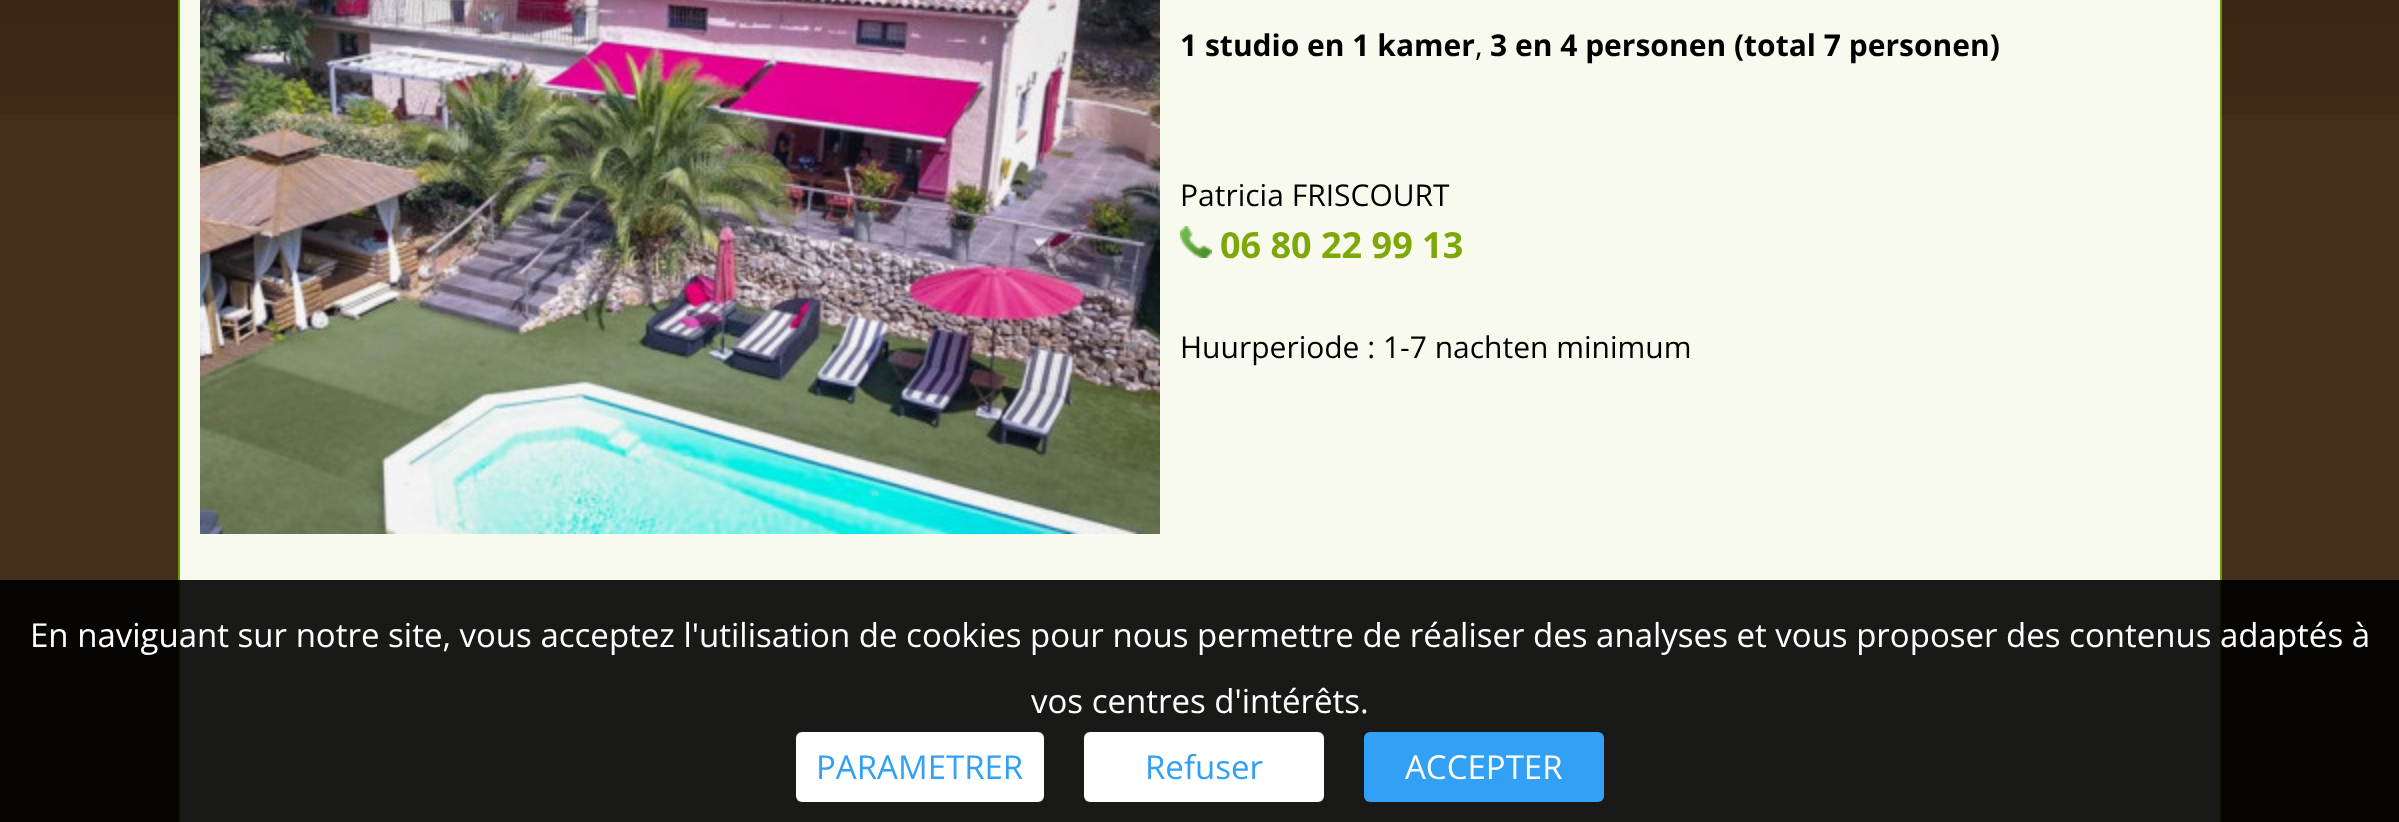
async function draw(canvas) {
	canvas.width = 2399;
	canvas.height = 822;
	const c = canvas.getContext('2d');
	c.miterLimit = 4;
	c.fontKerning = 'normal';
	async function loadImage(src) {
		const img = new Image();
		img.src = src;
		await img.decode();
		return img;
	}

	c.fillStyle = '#442d19';
	c.fillRect(0, 0, 2399, 822);
	c.drawImage(await loadImage('img1.png'), 0, 0, 2399, 115);
	c.fillStyle = '#f8faee';
	c.beginPath();
	c.rect(179, -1, 2042, 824);
	c.fill();
	c.strokeStyle = '#679800';
	c.lineWidth = 2;
	c.stroke();
	c.drawImage(await loadImage('img2.png'), 200, 0, 960, 534);
	c.font = 'bold 30px Open Sans';
	c.fillStyle = '#000';
	c.fillText('1 studio en 1 kamer', 1180, 56);
	c.font = '30px Open Sans';
	c.fillText(',', 1475, 56);
	c.font = 'bold 30px Open Sans';
	c.fillText('3 en 4 personen (total 7 personen)', 1490, 56);
	c.font = '30px Open Sans';
	c.fillText('Patricia FRISCOURT', 1180, 206);
	c.drawImage(await loadImage('img3.png'), 1180, 226, 32, 32);
	c.font = 'bold 36px Open Sans';
	c.fillStyle = '#7da808';
	c.fillText('06 80 22 99 13', 1220, 258);
	c.font = '30px Open Sans';
	c.fillStyle = '#000';
	c.fillText('Huurperiode : 1-7 nachten minimum', 1180, 358);
	c.fillStyle = '#000000e6';
	c.fillRect(0, 580, 2399, 242);
	c.font = '33px Open Sans';
	c.fillStyle = '#fff';
	c.fillText('En naviguant sur notre site, vous acceptez l\'utilisation de cookies pour nous permettre de réaliser des analyses et vous proposer des contenus adaptés à', 30, 647);
	c.fillText('vos centres d\'intérêts.', 1031, 713);
	c.beginPath();
	c.roundRect(796, 732, 248, 70, 6);
	c.fill();
	c.fillStyle = '#32a0f5';
	c.fillText('PARAMETRER', 816, 779);
	c.fillStyle = '#fff';
	c.beginPath();
	c.roundRect(1084, 732, 240, 70, 6);
	c.fill();
	c.fillStyle = '#32a0f5';
	c.fillText('Refuser', 1145, 779);
	c.beginPath();
	c.roundRect(1364, 732, 240, 70, 6);
	c.fill();
	c.fillStyle = '#fff';
	c.fillText('ACCEPTER', 1405, 779);
}

draw(document.querySelector('canvas'));
